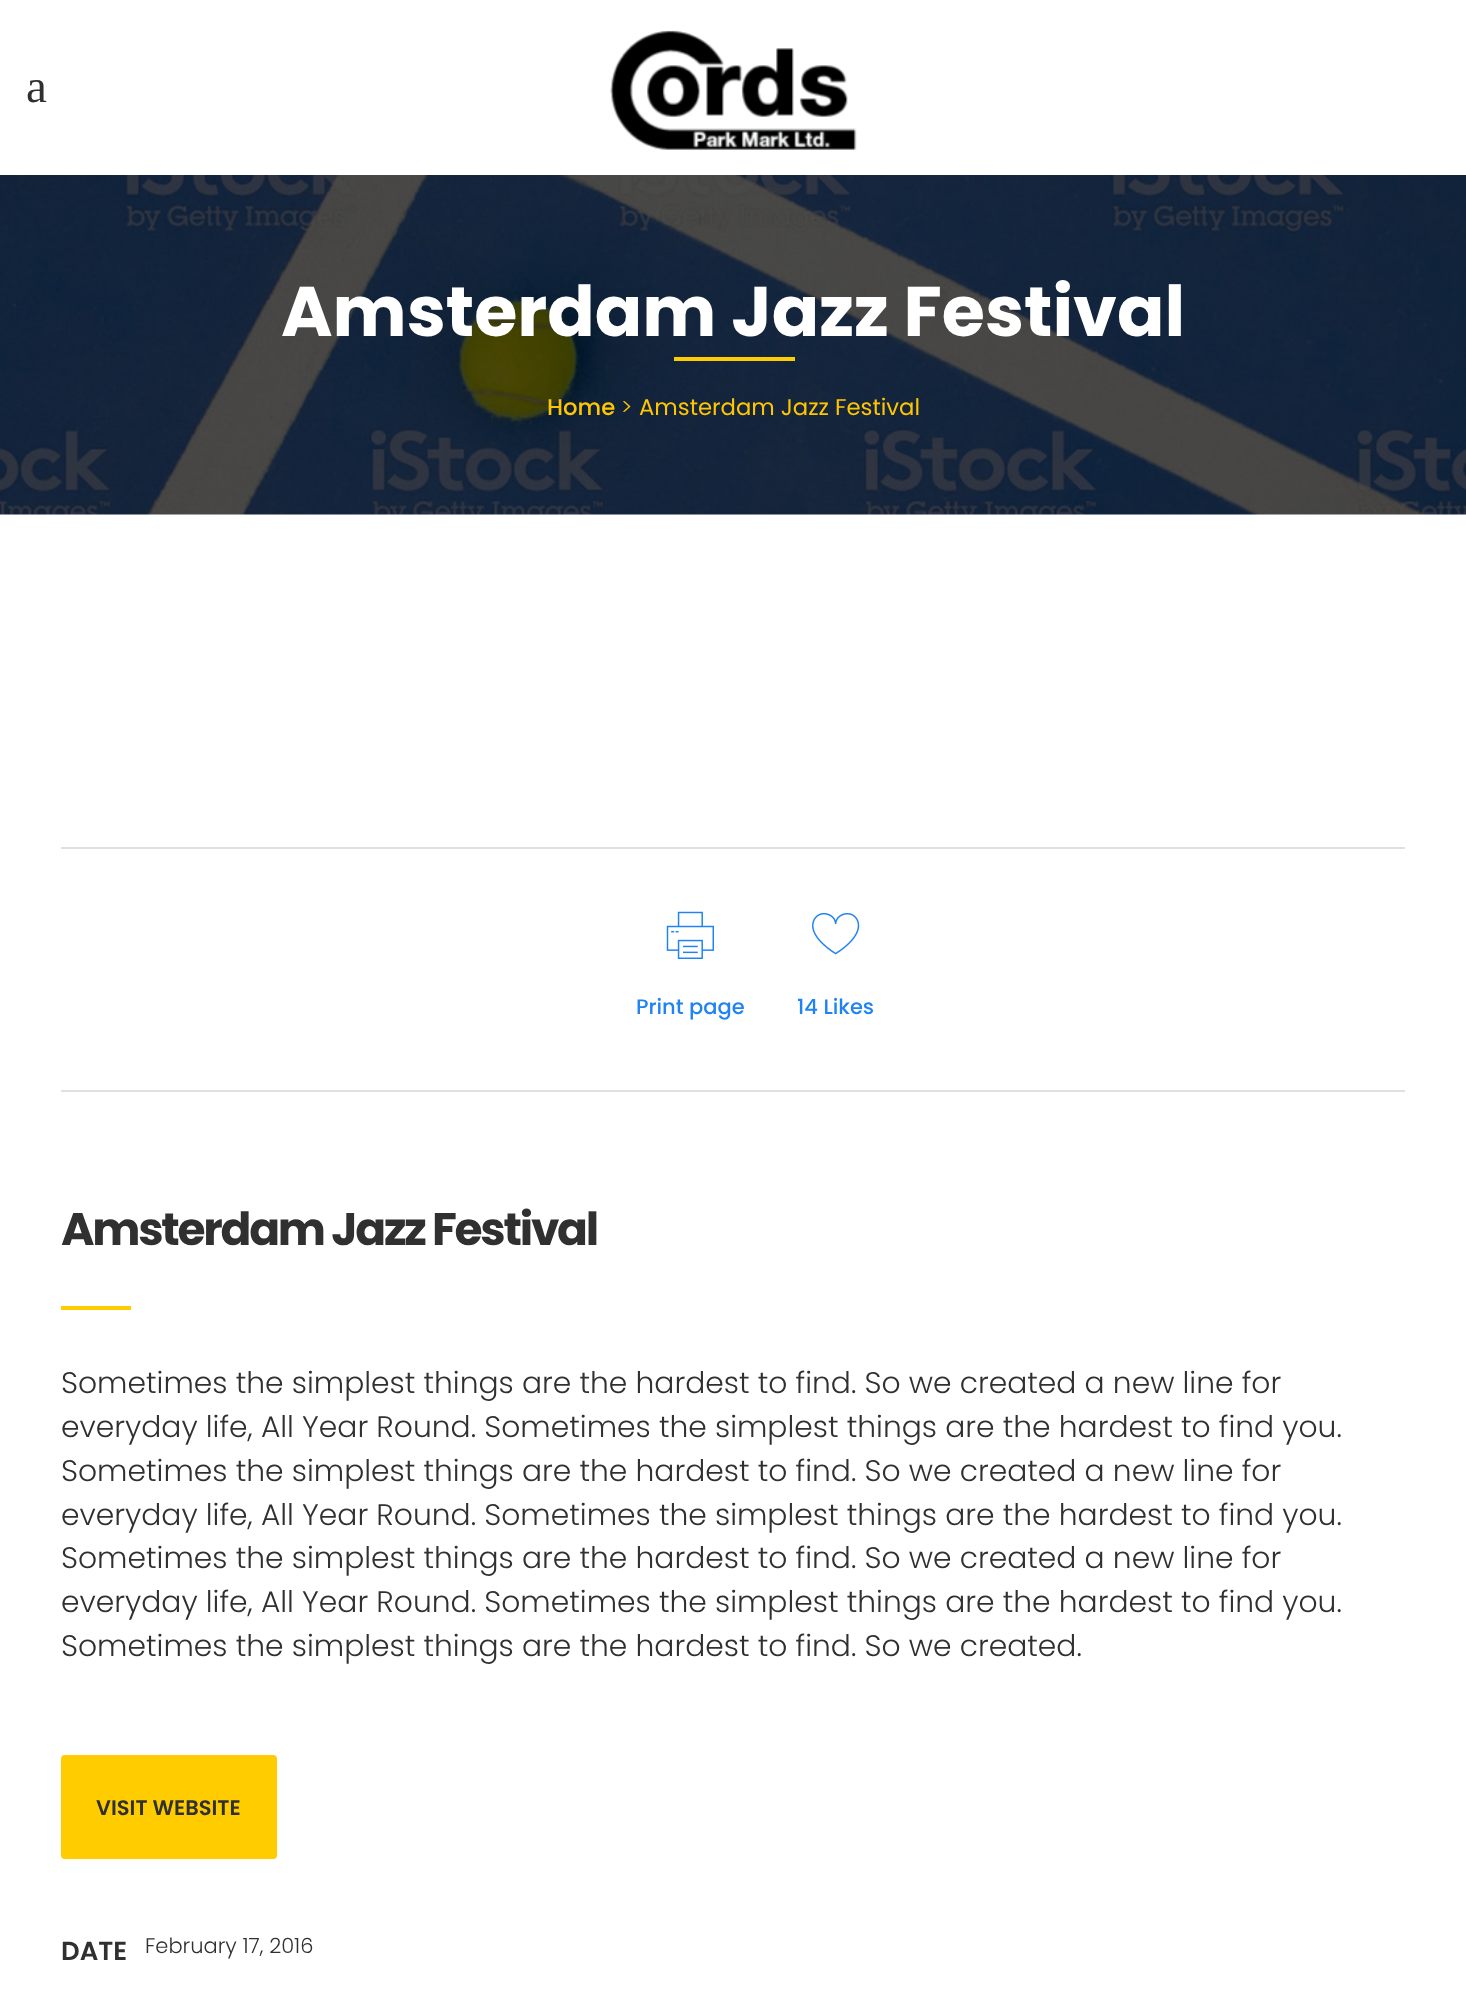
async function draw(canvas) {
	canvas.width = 1466;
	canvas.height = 2011;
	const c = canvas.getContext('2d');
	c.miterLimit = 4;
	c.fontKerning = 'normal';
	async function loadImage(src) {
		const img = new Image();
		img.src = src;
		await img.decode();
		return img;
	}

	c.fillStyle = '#fff';
	c.fillRect(0, 0, 1466, 2011);
	c.font = '47px Liberation Serif';
	c.fillStyle = '#303030';
	c.fillText('a', 26, 102);
	c.drawImage(await loadImage('img1.png'), 610, 30, 247, 120);
	c.drawImage(await loadImage('img2.png'), 0, 175, 1466, 340);
	c.font = 'bold 70px Poppins';
	c.fillStyle = '#fff';
	c.fillText('Amsterdam Jazz Festival', 281, 336);
	c.fillStyle = '#fc0';
	c.fillRect(674, 357, 121, 4);
	c.font = '500 22.75px Poppins';
	c.fillStyle = '#ffc600';
	c.fillText('Home', 547, 415);
	c.font = '300 22.75px Poppins';
	c.fillText('>', 621, 415);
	c.font = '22.75px Poppins';
	c.fillText('Amsterdam Jazz Festival', 639, 415);
	c.fillStyle = '#e0e0e0';
	c.fillRect(61, 847, 1344, 2);
	c.fillRect(61, 1090, 1344, 2);
	c.drawImage(await loadImage('img3.png'), 666, 911, 48, 48);
	c.font = '500 21px Poppins';
	c.fillStyle = '#1f83f4';
	c.fillText('Print page', 636, 1014);
	c.drawImage(await loadImage('img4.png'), 812, 912, 48, 43);
	c.fillText('14 Likes', 797, 1014);
	c.letterSpacing = '-2.25px';
	c.font = 'bold 45.5px Poppins';
	c.fillStyle = '#303030';
	c.fillText('Amsterdam Jazz Festival', 61, 1245);
	c.fillStyle = '#fc0';
	c.fillRect(61, 1306, 70, 4);
	c.letterSpacing = '0px';
	c.font = '300 29.75px Poppins';
	c.fillStyle = '#303030';
	for (const [text, x, y] of [
		['Sometimes the simplest things are the hardest to find. So we created a new line for', 61, 1393],
		['everyday life, All Year Round. Sometimes the simplest things are the hardest to find you.', 61, 1437],
		['Sometimes the simplest things are the hardest to find. So we created a new line for', 61, 1481],
		['everyday life, All Year Round. Sometimes the simplest things are the hardest to find you.', 61, 1525],
		['Sometimes the simplest things are the hardest to find. So we created a new line for', 61, 1568],
		['everyday life, All Year Round. Sometimes the simplest things are the hardest to find you.', 61, 1612],
		['Sometimes the simplest things are the hardest to find. So we created.', 61, 1656],
	]) {
		c.fillText(text, x, y);
	}
	c.fillStyle = '#fc0';
	c.beginPath();
	c.roundRect(61, 1755, 216, 104, 4);
	c.fill();
	c.font = '600 21px Poppins';
	c.fillStyle = '#303030';
	c.fillText('VISIT WEBSITE', 96, 1815);
	c.font = '600 26px Poppins';
	c.fillText('DATE', 61, 1960);
	c.font = '300 21px Poppins';
	c.fillText('February 17, 2016', 145, 1953);
}

draw(document.querySelector('canvas'));
